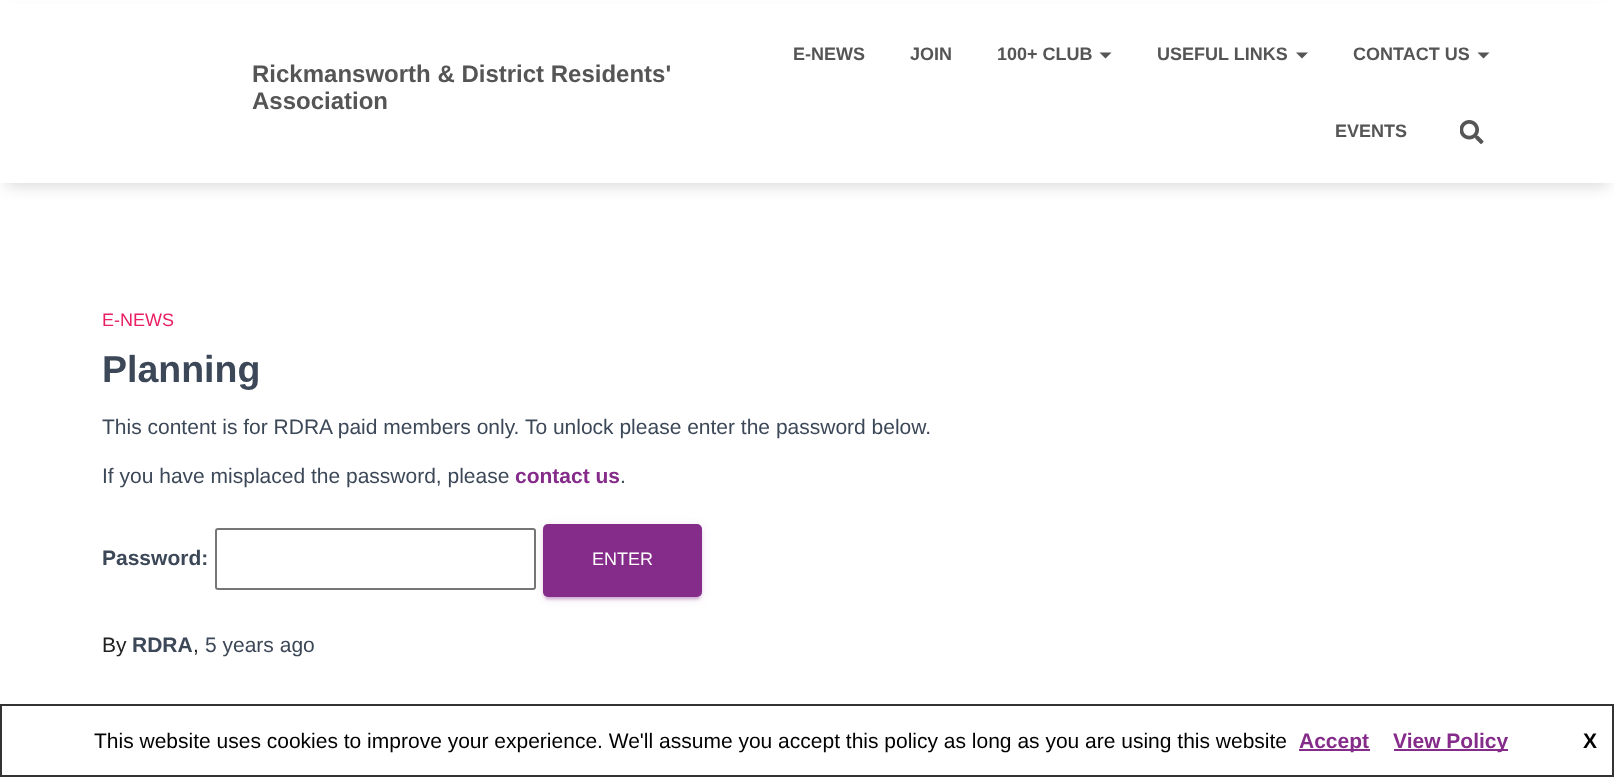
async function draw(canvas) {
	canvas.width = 1614;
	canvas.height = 777;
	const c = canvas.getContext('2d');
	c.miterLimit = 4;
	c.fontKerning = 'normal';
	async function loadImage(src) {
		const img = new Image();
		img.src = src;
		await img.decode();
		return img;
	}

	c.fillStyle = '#fff';
	c.fillRect(0, 0, 1614, 777);
	c.fillStyle = '#00000026';
	c.filter = 'blur(7.5px)';
	c.beginPath();
	c.rect(6, 15, 1602, 171);
	c.fill();
	c.filter = 'none';
	c.fillStyle = '#fff';
	c.fillRect(0, 4, 1614, 179);
	c.font = 'bold 24px Liberation Sans';
	c.fillStyle = '#555';
	c.fillText('Rickmansworth & District Residents\'', 252, 82);
	c.fillText('Association', 252, 109);
	c.font = 'bold 18px Liberation Sans';
	for (const [text, x, y] of [
		['E-NEWS', 793, 60],
		['JOIN', 910, 60],
		['100+ CLUB', 997, 60],
	]) {
		c.fillText(text, x, y);
	}
	c.beginPath();
	c.moveTo(1099.5, 52.5);
	c.lineTo(1111.5, 52.5);
	c.lineTo(1105.5, 58.5);
	c.closePath();
	c.fill();
	c.fillText('USEFUL LINKS', 1157, 60);
	c.beginPath();
	c.moveTo(1296, 52.5);
	c.lineTo(1308, 52.5);
	c.lineTo(1302, 58.5);
	c.closePath();
	c.fill();
	c.fillText('CONTACT US', 1353, 60);
	c.beginPath();
	c.moveTo(1477.5, 52.5);
	c.lineTo(1489.5, 52.5);
	c.lineTo(1483.5, 58.5);
	c.closePath();
	c.fill();
	c.fillText('EVENTS', 1335, 137);
	c.drawImage(await loadImage('img1.png'), 1460, 120, 24, 24);
	c.font = '18px Liberation Sans';
	c.fillStyle = '#e91e63';
	c.fillText('E-NEWS', 102, 326);
	c.font = 'bold 37.5px Liberation Sans';
	c.fillStyle = '#3c4858';
	c.fillText('Planning', 102, 382);
	c.font = '21px Liberation Sans';
	c.fillText('This content is for RDRA paid members only. To unlock please enter the password below.', 102, 434);
	c.fillText('If you have misplaced the password, please', 102, 483);
	c.font = 'bold 21px Liberation Sans';
	c.fillStyle = '#852b8a';
	c.fillText('contact us', 515, 483);
	c.font = '21px Liberation Sans';
	c.fillStyle = '#3c4858';
	c.fillText('.', 620, 483);
	c.font = 'bold 21px Liberation Sans';
	c.fillText('Password:', 102, 565);
	c.beginPath();
	c.roundRect(216, 529, 319, 60, 2);
	c.strokeStyle = '#767676';
	c.lineWidth = 2;
	c.stroke();
	c.fillStyle = '#852b8a1f';
	c.filter = 'blur(4px)';
	c.beginPath();
	c.roundRect(543, 525, 159, 74, 5);
	c.fill();
	c.filter = 'none';
	c.fillStyle = '#852b8a33';
	c.filter = 'blur(1px)';
	c.beginPath();
	c.roundRect(546, 531, 153, 68, 1.5);
	c.fill();
	c.filter = 'none';
	c.fillStyle = '#852b8a24';
	c.filter = 'blur(1.5px)';
	c.beginPath();
	c.roundRect(543, 527, 159, 73, 5);
	c.fill();
	c.filter = 'none';
	c.fillStyle = '#852b8a';
	c.beginPath();
	c.roundRect(543, 524, 159, 73, 5);
	c.fill();
	c.font = '18px Liberation Sans';
	c.fillStyle = '#fff';
	c.fillText('ENTER', 592, 565);
	c.font = '21px Liberation Sans';
	c.fillStyle = '#212121';
	c.fillText('By', 102, 652);
	c.font = 'bold 21px Liberation Sans';
	c.fillStyle = '#3c4858';
	c.fillText('RDRA', 132, 652);
	c.font = '21px Liberation Sans';
	c.fillStyle = '#212121';
	c.fillText(',', 193, 652);
	c.fillStyle = '#3c4858';
	c.fillText('5 years ago', 205, 652);
	c.strokeStyle = '#333';
	c.strokeRect(1, 705, 1612, 71);
	c.fillStyle = '#000';
	c.fillText('This website uses cookies to improve your experience. We\'ll assume you accept this policy as long as you are using this website', 94, 748);
	c.fillStyle = '#852b8a';
	c.fillRect(1299, 749, 71, 2);
	c.font = 'bold 21px Liberation Sans';
	c.fillText('Accept', 1299, 748);
	c.fillRect(1394, 749, 114, 2);
	c.fillText('View Policy', 1393, 748);
	c.fillStyle = '#000';
	c.fillText('X', 1583, 748);
}

draw(document.querySelector('canvas'));
